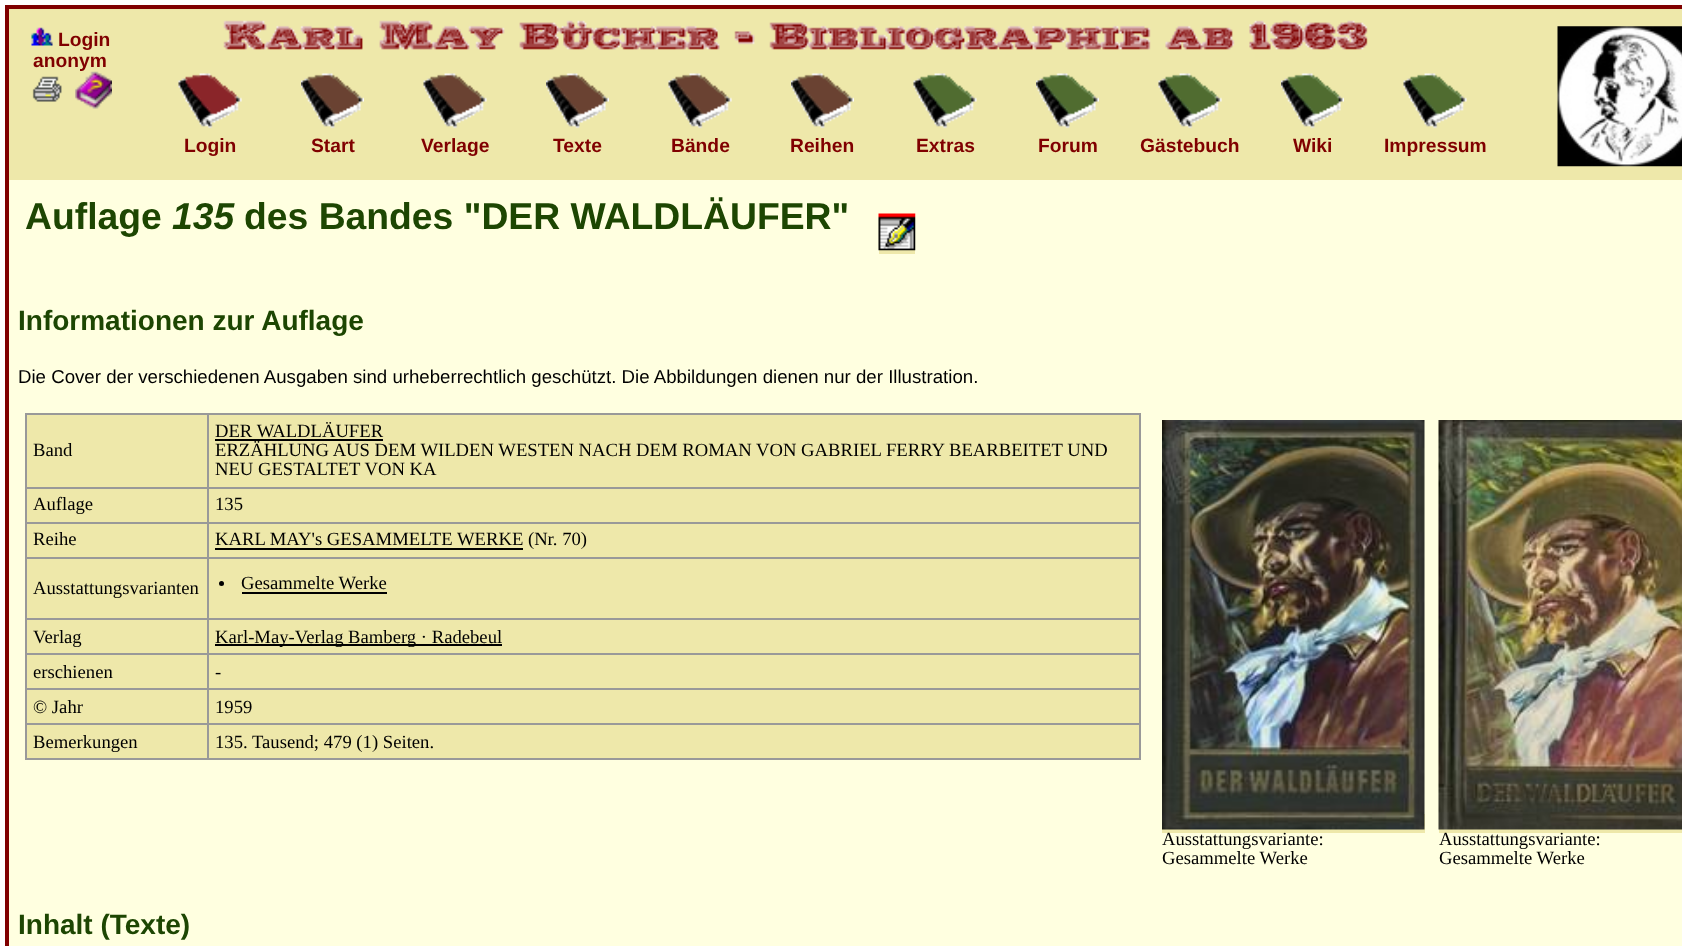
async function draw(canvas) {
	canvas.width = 1682;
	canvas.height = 946;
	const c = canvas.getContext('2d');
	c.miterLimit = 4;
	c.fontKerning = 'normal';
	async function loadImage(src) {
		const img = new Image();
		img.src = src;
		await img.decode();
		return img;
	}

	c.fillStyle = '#fff';
	c.fillRect(0, 0, 1682, 946);
	for (const [x, y, w, h, color] of [
		[9, 9, 1673, 171, '#eee8aa'],
		[5, 5, 1677, 4, '#800000'],
		[5, 5, 4, 941, '#800000'],
	]) {
		c.fillStyle = color;
		c.fillRect(x, y, w, h);
	}
	c.drawImage(await loadImage('img1.png'), 31, 27, 22, 19);
	c.font = 'bold 19.25px Liberation Sans';
	c.fillText('Login', 58, 46);
	c.fillText('anonym', 33, 67);
	c.drawImage(await loadImage('img2.png'), 32, 76, 30, 26);
	c.drawImage(await loadImage('img3.png'), 75, 71, 37, 38);
	c.drawImage(await loadImage('img4.png'), 223, 20, 1145, 30);
	c.drawImage(await loadImage('img5.png'), 1557, 26, 125, 141);
	c.drawImage(await loadImage('img6.png'), 178, 73, 64, 56);
	c.fillText('Login', 184, 152);
	c.drawImage(await loadImage('img7.png'), 301, 73, 63, 56);
	c.fillText('Start', 311, 152);
	c.drawImage(await loadImage('img8.png'), 423, 73, 64, 56);
	c.fillText('Verlage', 421, 152);
	c.drawImage(await loadImage('img7.png'), 546, 73, 63, 56);
	c.fillText('Texte', 553, 152);
	c.drawImage(await loadImage('img9.png'), 668, 73, 64, 56);
	c.fillText('Bände', 671, 152);
	c.drawImage(await loadImage('img10.png'), 791, 73, 63, 56);
	c.fillText('Reihen', 790, 152);
	c.drawImage(await loadImage('img11.png'), 913, 73, 64, 56);
	c.fillText('Extras', 916, 152);
	c.drawImage(await loadImage('img12.png'), 1036, 73, 63, 56);
	c.fillText('Forum', 1038, 152);
	c.drawImage(await loadImage('img11.png'), 1158, 73, 64, 56);
	c.fillText('Gästebuch', 1140, 152);
	c.drawImage(await loadImage('img12.png'), 1281, 73, 63, 56);
	c.fillText('Wiki', 1293, 152);
	c.drawImage(await loadImage('img11.png'), 1403, 73, 64, 56);
	c.fillText('Impressum', 1384, 152);
	c.fillStyle = '#ffffe0';
	c.fillRect(9, 180, 1673, 766);
	c.font = 'bold 37.3px Liberation Sans';
	c.fillStyle = '#1d4602';
	c.fillText('Auflage', 25, 229);
	c.font = 'italic bold 37.3px Liberation Sans';
	c.fillText('135', 172, 229);
	c.font = 'bold 37.3px Liberation Sans';
	c.fillText('des Bandes "DER WALDLÄUFER"', 244, 229);
	c.fillStyle = '#eee8aa';
	c.fillRect(879, 250, 36, 4);
	c.drawImage(await loadImage('img13.png'), 878, 213, 38, 38);
	c.font = 'bold 28px Liberation Sans';
	c.fillStyle = '#1d4602';
	c.fillText('Informationen zur Auflage', 18, 330);
	c.font = '18.67px Liberation Sans';
	c.fillStyle = '#000';
	c.fillText('Die Cover der verschiedenen Ausgaben sind urheberrechtlich geschützt. Die Abbildungen dienen nur der Illustration.', 18, 383);
	for (const [x, y, w, h, color] of [
		[27, 415, 180, 72, '#eee8aa'],
		[207, 413, 934, 2, '#999'],
		[207, 487, 934, 2, '#999'],
		[207, 522, 934, 2, '#999'],
		[207, 557, 934, 2, '#999'],
		[207, 618, 934, 2, '#999'],
		[207, 653, 934, 2, '#999'],
		[207, 688, 934, 2, '#999'],
		[207, 723, 934, 2, '#999'],
		[1139, 723, 2, 37, '#999'],
		[207, 758, 934, 2, '#999'],
		[207, 723, 2, 37, '#999'],
		[25, 723, 183, 2, '#999'],
		[207, 688, 2, 37, '#999'],
		[25, 688, 183, 2, '#999'],
		[207, 653, 2, 37, '#999'],
		[25, 653, 183, 2, '#999'],
		[207, 618, 2, 37, '#999'],
		[25, 618, 183, 2, '#999'],
		[207, 557, 2, 63, '#999'],
		[25, 557, 183, 2, '#999'],
		[207, 522, 2, 36, '#999'],
		[25, 522, 183, 2, '#999'],
		[207, 487, 2, 36, '#999'],
		[25, 487, 183, 2, '#999'],
		[207, 413, 2, 75, '#999'],
		[25, 413, 183, 2, '#999'],
		[25, 758, 183, 2, '#999'],
		[25, 723, 2, 37, '#999'],
		[25, 688, 2, 37, '#999'],
		[25, 653, 2, 37, '#999'],
		[25, 618, 2, 37, '#999'],
		[25, 557, 2, 63, '#999'],
		[25, 522, 2, 36, '#999'],
		[25, 487, 2, 36, '#999'],
		[25, 413, 2, 75, '#999'],
	]) {
		c.fillStyle = color;
		c.fillRect(x, y, w, h);
	}
	c.font = '18.67px Liberation Serif';
	c.fillStyle = '#000';
	c.fillText('Band', 33, 456);
	for (const [x, y, w, h, color] of [
		[209, 415, 930, 72, '#eee8aa'],
		[1139, 688, 2, 37, '#999'],
		[1139, 653, 2, 37, '#999'],
		[1139, 618, 2, 37, '#999'],
		[1139, 557, 2, 63, '#999'],
		[1139, 522, 2, 36, '#999'],
		[1139, 487, 2, 36, '#999'],
		[1139, 413, 2, 75, '#999'],
	]) {
		c.fillStyle = color;
		c.fillRect(x, y, w, h);
	}
	c.fillStyle = '#000';
	c.fillText('DER WALDLÄUFER', 215, 437);
	c.fillRect(215, 439, 168, 2);
	c.fillText('ERZÄHLUNG AUS DEM WILDEN WESTEN NACH DEM ROMAN VON GABRIEL FERRY BEARBEITET UND', 215, 456);
	c.fillText('NEU GESTALTET VON KA', 215, 475);
	c.fillStyle = '#eee8aa';
	c.fillRect(27, 489, 180, 33);
	c.fillStyle = '#000';
	c.fillText('Auflage', 33, 510);
	c.fillStyle = '#eee8aa';
	c.fillRect(209, 489, 930, 33);
	c.fillStyle = '#000';
	c.fillText('135', 215, 510);
	c.fillStyle = '#eee8aa';
	c.fillRect(27, 524, 180, 33);
	c.fillStyle = '#000';
	c.fillText('Reihe', 33, 545);
	c.fillStyle = '#eee8aa';
	c.fillRect(209, 524, 930, 33);
	c.fillStyle = '#000';
	c.fillRect(215, 548, 308, 2);
	c.fillText('KARL MAY\'s GESAMMELTE WERKE (Nr. 70)', 215, 545);
	c.fillStyle = '#eee8aa';
	c.fillRect(27, 559, 180, 59);
	c.fillStyle = '#000';
	c.fillText('Ausstattungsvarianten', 33, 594);
	c.fillStyle = '#eee8aa';
	c.fillRect(209, 559, 930, 59);
	c.fillStyle = '#000';
	c.beginPath();
	c.arc(221.5, 583.5, 2.5, 0, 2 * Math.PI);
	c.fill();
	c.fillText('Gesammelte Werke', 241, 589);
	c.fillRect(242, 592, 145, 2);
	c.fillStyle = '#eee8aa';
	c.fillRect(27, 620, 180, 33);
	c.fillStyle = '#000';
	c.fillText('Verlag', 33, 643);
	c.fillStyle = '#eee8aa';
	c.fillRect(209, 620, 930, 33);
	c.fillStyle = '#000';
	c.fillRect(215, 644, 287, 2);
	c.fillText('Karl-May-Verlag Bamberg · Radebeul', 215, 643);
	c.fillStyle = '#eee8aa';
	c.fillRect(27, 655, 180, 33);
	c.fillStyle = '#000';
	c.fillText('erschienen', 33, 678);
	c.fillStyle = '#eee8aa';
	c.fillRect(209, 655, 930, 33);
	c.fillStyle = '#000';
	c.fillText('-', 215, 678);
	c.fillStyle = '#eee8aa';
	c.fillRect(27, 690, 180, 33);
	c.fillStyle = '#000';
	c.fillText('© Jahr', 33, 713);
	c.fillStyle = '#eee8aa';
	c.fillRect(209, 690, 930, 33);
	c.fillStyle = '#000';
	c.fillText('1959', 215, 713);
	c.fillStyle = '#eee8aa';
	c.fillRect(27, 725, 180, 33);
	c.fillStyle = '#000';
	c.fillText('Bemerkungen', 33, 748);
	c.fillStyle = '#eee8aa';
	c.fillRect(209, 725, 930, 33);
	c.fillStyle = '#000';
	c.fillText('135. Tausend; 479 (1) Seiten.', 215, 748);
	c.fillStyle = '#eee8aa';
	c.fillRect(1162, 814, 263, 19);
	c.drawImage(await loadImage('img14.png'), 1162, 420, 263, 410);
	c.fillStyle = '#000';
	c.fillText('Ausstattungsvariante:', 1162, 845);
	c.fillText('Gesammelte Werke', 1162, 864);
	c.fillStyle = '#eee8aa';
	c.fillRect(1439, 829, 243, 4);
	c.drawImage(await loadImage('img15.png'), 1438, 420, 244, 410);
	c.fillStyle = '#000';
	c.fillText('Ausstattungsvariante:', 1439, 845);
	c.fillText('Gesammelte Werke', 1439, 864);
	c.font = 'bold 28px Liberation Sans';
	c.fillStyle = '#1d4602';
	c.fillText('Inhalt (Texte)', 18, 934);
}

draw(document.querySelector('canvas'));
